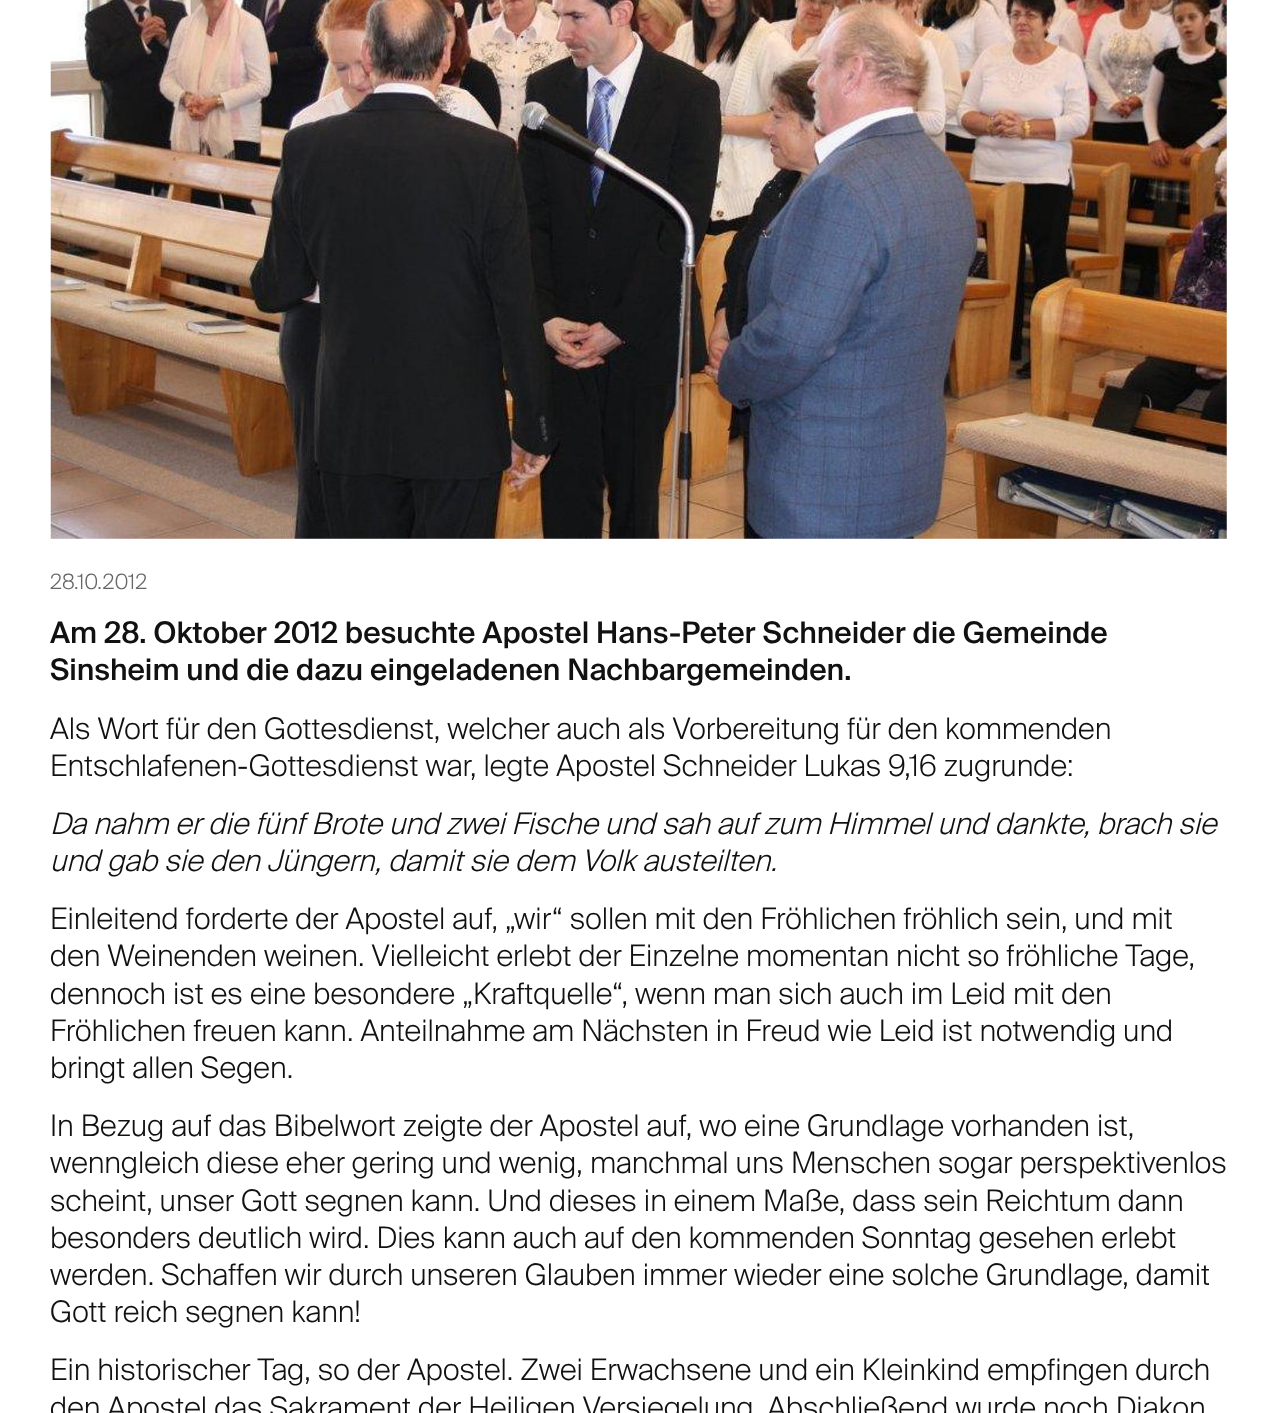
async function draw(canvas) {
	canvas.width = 1277;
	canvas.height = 1413;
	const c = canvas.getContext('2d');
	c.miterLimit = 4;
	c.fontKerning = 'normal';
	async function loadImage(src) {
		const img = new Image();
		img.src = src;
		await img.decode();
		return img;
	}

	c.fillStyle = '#fff';
	c.fillRect(0, 0, 1277, 1413);
	c.drawImage(await loadImage('img1.png'), 50, 0, 1177, 539);
	c.font = '300 21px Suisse';
	c.fillStyle = '#666';
	c.fillText('28.10.2012', 50, 589);
	c.font = '500 29.75px Suisse';
	c.fillStyle = '#111';
	c.fillText('Am 28. Oktober 2012 besuchte Apostel Hans-Peter Schneider die Gemeinde', 50, 643);
	c.fillText('Sinsheim und die dazu eingeladenen Nachbargemeinden.', 50, 680);
	c.font = '300 29.75px Suisse';
	c.fillText('Als Wort für den Gottesdienst, welcher auch als Vorbereitung für den kommenden', 50, 739);
	c.fillText('Entschlafenen-Gottesdienst war, legte Apostel Schneider Lukas 9,16 zugrunde:', 50, 776);
	c.font = 'italic 300 29.75px Suisse';
	c.fillText('Da nahm er die fünf Brote und zwei Fische und sah auf zum Himmel und dankte, brach sie', 50, 834);
	c.fillText('und gab sie den Jüngern, damit sie dem Volk austeilten.', 50, 871);
	c.font = '300 29.75px Suisse';
	for (const [text, x, y] of [
		['Einleitend forderte der Apostel auf, „wir“ sollen mit den Fröhlichen fröhlich sein, und mit', 50, 929],
		['den Weinenden weinen. Vielleicht erlebt der Einzelne momentan nicht so fröhliche Tage,', 50, 966],
		['dennoch ist es eine besondere „Kraftquelle“, wenn man sich auch im Leid mit den', 50, 1004],
		['Fröhlichen freuen kann. Anteilnahme am Nächsten in Freud wie Leid ist notwendig und', 50, 1041],
		['bringt allen Segen.', 50, 1078],
		['In Bezug auf das Bibelwort zeigte der Apostel auf, wo eine Grundlage vorhanden ist,', 50, 1136],
		['wenngleich diese eher gering und wenig, manchmal uns Menschen sogar perspektivenlos', 50, 1173],
		['scheint, unser Gott segnen kann. Und dieses in einem Maße, dass sein Reichtum dann', 50, 1211],
		['besonders deutlich wird. Dies kann auch auf den kommenden Sonntag gesehen erlebt', 50, 1248],
		['werden. Schaffen wir durch unseren Glauben immer wieder eine solche Grundlage, damit', 50, 1285],
		['Gott reich segnen kann!', 50, 1322],
		['Ein historischer Tag, so der Apostel. Zwei Erwachsene und ein Kleinkind empfingen durch', 50, 1380],
		['den Apostel das Sakrament der Heiligen Versiegelung. Abschließend wurde noch Diakon', 50, 1418],
	]) {
		c.fillText(text, x, y);
	}
}

draw(document.querySelector('canvas'));
